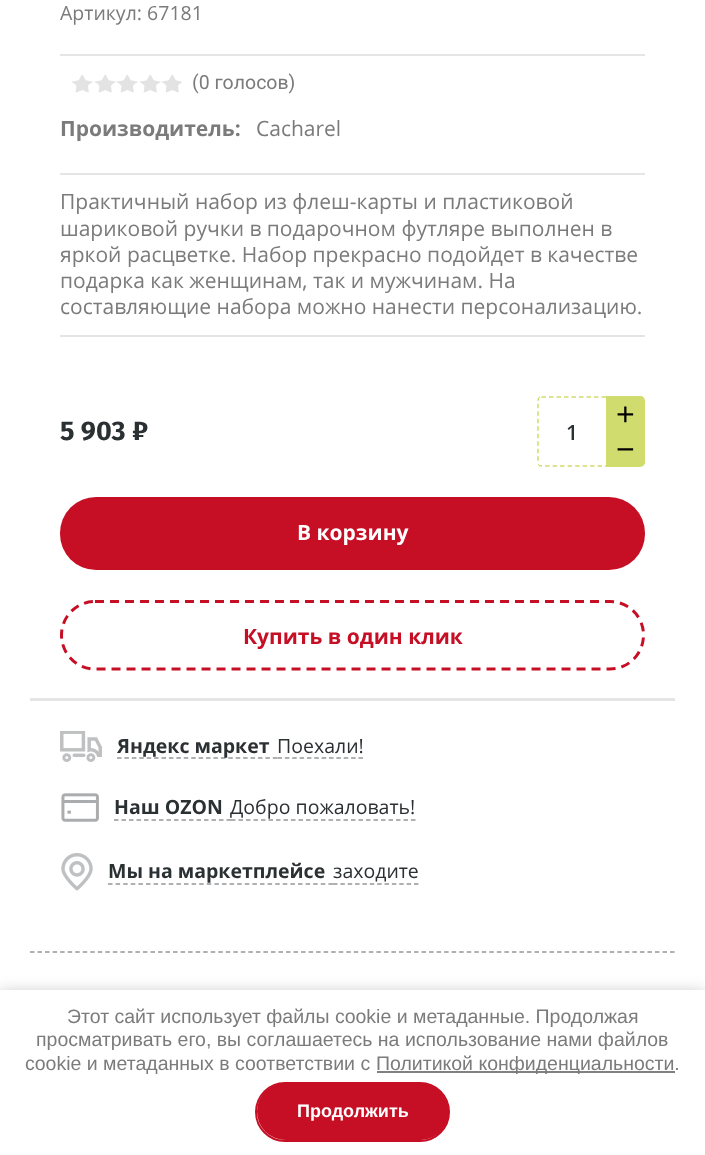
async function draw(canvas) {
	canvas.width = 705;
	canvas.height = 1155;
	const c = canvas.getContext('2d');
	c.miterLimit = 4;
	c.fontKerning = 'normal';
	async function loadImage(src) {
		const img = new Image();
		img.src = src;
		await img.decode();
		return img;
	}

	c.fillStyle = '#fff';
	c.fillRect(0, 0, 705, 1155);
	c.fillStyle = '#0000001a';
	c.fillRect(30, 698, 645, 3);
	c.fillStyle = '#e5e5e5';
	c.fillRect(60, 54, 585, 2);
	c.font = '19.5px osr';
	c.fillStyle = '#7b7b7b';
	c.fillText('Артикул: 67181', 60, 20);
	c.fillStyle = '#e5e5e5';
	c.fillRect(60, 173, 585, 2);
	c.drawImage(await loadImage('img1.png'), 72, 74, 110, 19);
	c.font = '19.5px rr';
	c.fillStyle = '#7b7b7b';
	c.fillText('(0 голосов)', 192, 89);
	c.font = 'bold 21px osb';
	c.fillText('Производитель:', 60, 136);
	c.font = '21px osr';
	c.fillText('Cacharel', 256, 136);
	c.fillStyle = '#e5e5e5';
	c.fillRect(60, 335, 585, 2);
	c.fillStyle = '#7b7b7b';
	for (const [text, x, y] of [
		['Практичный набор из флеш-карты и пластиковой', 60, 209],
		['шариковой ручки в подарочном футляре выполнен в', 60, 236],
		['яркой расцветке. Набор прекрасно подойдет в качестве', 60, 262],
		['подарка как женщинам, так и мужчинам. На', 60, 288],
		['составляющие набора можно нанести персонализацию.', 60, 314],
	]) {
		c.fillText(text, x, y);
	}
	c.font = 'bold 27px Fira Sans';
	c.fillStyle = '#2b3033';
	c.fillText('5 903 ₽', 60, 440);
	c.beginPath();
	c.moveTo(541.5, 397);
	c.lineTo(640.5, 397);
	c.bezierCurveTo(642.5, 397, 644, 398.5, 644, 400.5);
	c.lineTo(644, 462);
	c.bezierCurveTo(644, 464, 642.5, 466, 640.5, 466);
	c.lineTo(541.5, 466);
	c.bezierCurveTo(539.5, 466, 538, 464, 538, 462);
	c.lineTo(538, 400.5);
	c.bezierCurveTo(538, 398.5, 539.5, 397, 541.5, 397);
	c.closePath();
	c.strokeStyle = '#d1dc6e';
	c.lineWidth = 1.5;
	c.setLineDash([4.5, 3]);
	c.stroke();
	c.fillStyle = '#d1dc6e';
	c.beginPath();
	c.roundRect(606, 396, 39, 36, [0, 5, 0, 0]);
	c.fill();
	c.font = '32px Liberation Sans';
	c.fillStyle = '#000';
	c.fillText('+', 616, 425);
	c.fillStyle = '#fff';
	c.fillRect(539, 398, 2, 67);
	c.font = '600 21px Open Sans';
	c.fillStyle = '#2b3033';
	c.fillText('1', 566, 440);
	c.fillStyle = '#d1dc6e';
	c.beginPath();
	c.roundRect(606, 432, 39, 35, [0, 0, 5, 0]);
	c.fill();
	c.font = '32px Liberation Sans';
	c.fillStyle = '#000';
	c.fillText('−', 616, 460);
	c.fillStyle = '#c60f25';
	c.beginPath();
	c.roundRect(60, 497, 585, 73, 36);
	c.fill();
	c.font = 'bold 21px osb';
	c.fillStyle = '#fff';
	c.fillText('В корзину', 297, 540);
	c.beginPath();
	c.moveTo(95, 601.5);
	c.lineTo(610, 601.5);
	c.bezierCurveTo(628.5, 601.5, 643.5, 616.5, 643.5, 635);
	c.bezierCurveTo(643.5, 654, 628.5, 669, 610, 669);
	c.lineTo(95, 669);
	c.bezierCurveTo(76.5, 669, 61.5, 654, 61.5, 635);
	c.bezierCurveTo(61.5, 616.5, 76.5, 601.5, 95, 601.5);
	c.closePath();
	c.strokeStyle = '#c60f25';
	c.lineWidth = 3;
	c.setLineDash([9, 6]);
	c.stroke();
	c.fillStyle = '#c60f25';
	c.fillText('Купить в один клик', 243, 644);
	c.beginPath();
	c.moveTo(30, 952);
	c.lineTo(675, 952);
	c.strokeStyle = '#959799';
	c.lineWidth = 1.5;
	c.setLineDash([4.5, 3.03]);
	c.stroke();
	c.drawImage(await loadImage('img2.png'), 60, 731, 42, 31);
	c.beginPath();
	c.moveTo(117, 758);
	c.lineTo(277.5, 758);
	c.setLineDash([4.5, 2.92]);
	c.stroke();
	c.font = 'bold 19.5px osb';
	c.fillStyle = '#2b3033';
	c.fillText('Яндекс маркет', 117, 753);
	c.beginPath();
	c.moveTo(277.5, 758);
	c.lineTo(363, 758);
	c.setLineDash([4.5, 2.86]);
	c.stroke();
	c.font = '19.5px osr';
	c.fillText('Поехали!', 277, 753);
	c.drawImage(await loadImage('img3.png'), 61, 793, 38, 29);
	c.beginPath();
	c.moveTo(114, 820);
	c.lineTo(231, 820);
	c.setLineDash([4.5, 3]);
	c.stroke();
	c.font = 'bold 19.5px osb';
	c.fillText('Наш OZON', 114, 814);
	c.beginPath();
	c.moveTo(231, 820);
	c.lineTo(415.5, 820);
	c.stroke();
	c.font = '19.5px osr';
	c.fillText('Добро пожаловать!', 230, 814);
	c.drawImage(await loadImage('img4.png'), 61, 853, 32, 38);
	c.beginPath();
	c.moveTo(108, 884);
	c.lineTo(333, 884);
	c.setLineDash([4.5, 3.1]);
	c.stroke();
	c.font = 'bold 19.5px osb';
	c.fillText('Мы на маркетплейсе', 108, 878);
	c.beginPath();
	c.moveTo(333, 884);
	c.lineTo(418.5, 884);
	c.setLineDash([4.5, 2.86]);
	c.stroke();
	c.font = '19.5px osr';
	c.fillText('заходите', 333, 878);
	c.fillStyle = '#0000003b';
	c.filter = 'blur(7.5px)';
	c.beginPath();
	c.rect(0, 992, 705, 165);
	c.fill();
	c.filter = 'none';
	c.fillStyle = '#fff';
	c.fillRect(0, 990, 705, 165);
	c.font = '19.5px Liberation Sans';
	c.fillStyle = '#7b7b7b';
	for (const [text, x, y] of [
		['Этот сайт использует файлы cookie и метаданные. Продолжая', 67, 1023],
		['просматривать его, вы соглашаетесь на использование нами файлов', 36, 1046],
		['cookie и метаданных в соответствии с', 25, 1070],
	]) {
		c.fillText(text, x, y);
	}
	c.fillStyle = '#808080';
	c.fillRect(377, 1071, 298, 2);
	c.fillStyle = '#7b7b7b';
	c.fillText('Политикой конфиденциальности.', 376, 1070);
	c.beginPath();
	c.roundRect(256, 1083, 193, 58, 29);
	c.strokeStyle = '#c60f25';
	c.lineWidth = 2;
	c.setLineDash([]);
	c.stroke();
	c.fillStyle = '#c60f25';
	c.beginPath();
	c.roundRect(257, 1083, 192, 57, 28.5);
	c.fill();
	c.font = 'bold 18px Liberation Sans';
	c.fillStyle = '#fff';
	c.fillText('Продолжить', 297, 1117);
}

draw(document.querySelector('canvas'));
